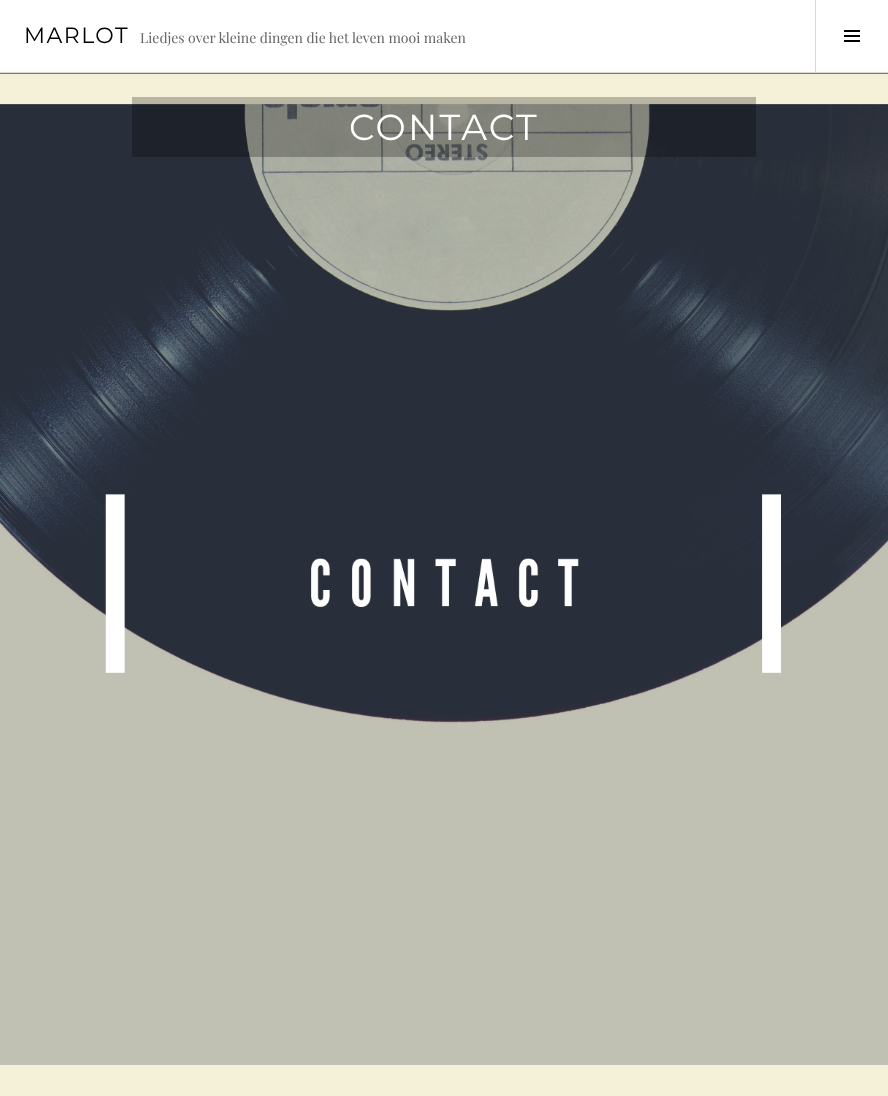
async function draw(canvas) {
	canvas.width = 888;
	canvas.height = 1096;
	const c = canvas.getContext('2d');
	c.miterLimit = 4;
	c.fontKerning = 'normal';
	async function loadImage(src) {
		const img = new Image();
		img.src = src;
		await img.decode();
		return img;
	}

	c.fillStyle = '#fff';
	c.fillRect(0, 0, 888, 1096);
	c.fillStyle = '#d9d9d9';
	c.fillRect(0, 72, 888, 1);
	c.letterSpacing = '1.5px';
	c.font = '22px Montserrat';
	c.fillStyle = '#000';
	c.fillText('MARLOT', 24, 43);
	c.letterSpacing = '0px';
	c.font = '14px Playfair Display';
	c.fillStyle = '#666';
	c.fillText('Liedjes over kleine dingen die het leven mooi maken', 140, 43);
	c.fillStyle = '#d9d9d9';
	c.fillRect(815, 0, 1, 72);
	c.drawImage(await loadImage('img1.png'), 844, 30, 16, 12);
	c.fillStyle = '#000';
	c.fillRect(0, 73, 888, 1);
	c.drawImage(await loadImage('img2.png'), 0, 73, 888, 1023);
	c.fillStyle = '#00000040';
	c.fillRect(132, 97, 624, 60);
	c.letterSpacing = '2.25px';
	c.font = '36px Montserrat';
	c.fillStyle = '#fff';
	c.fillText('CONTACT', 349, 140);
}

draw(document.querySelector('canvas'));
